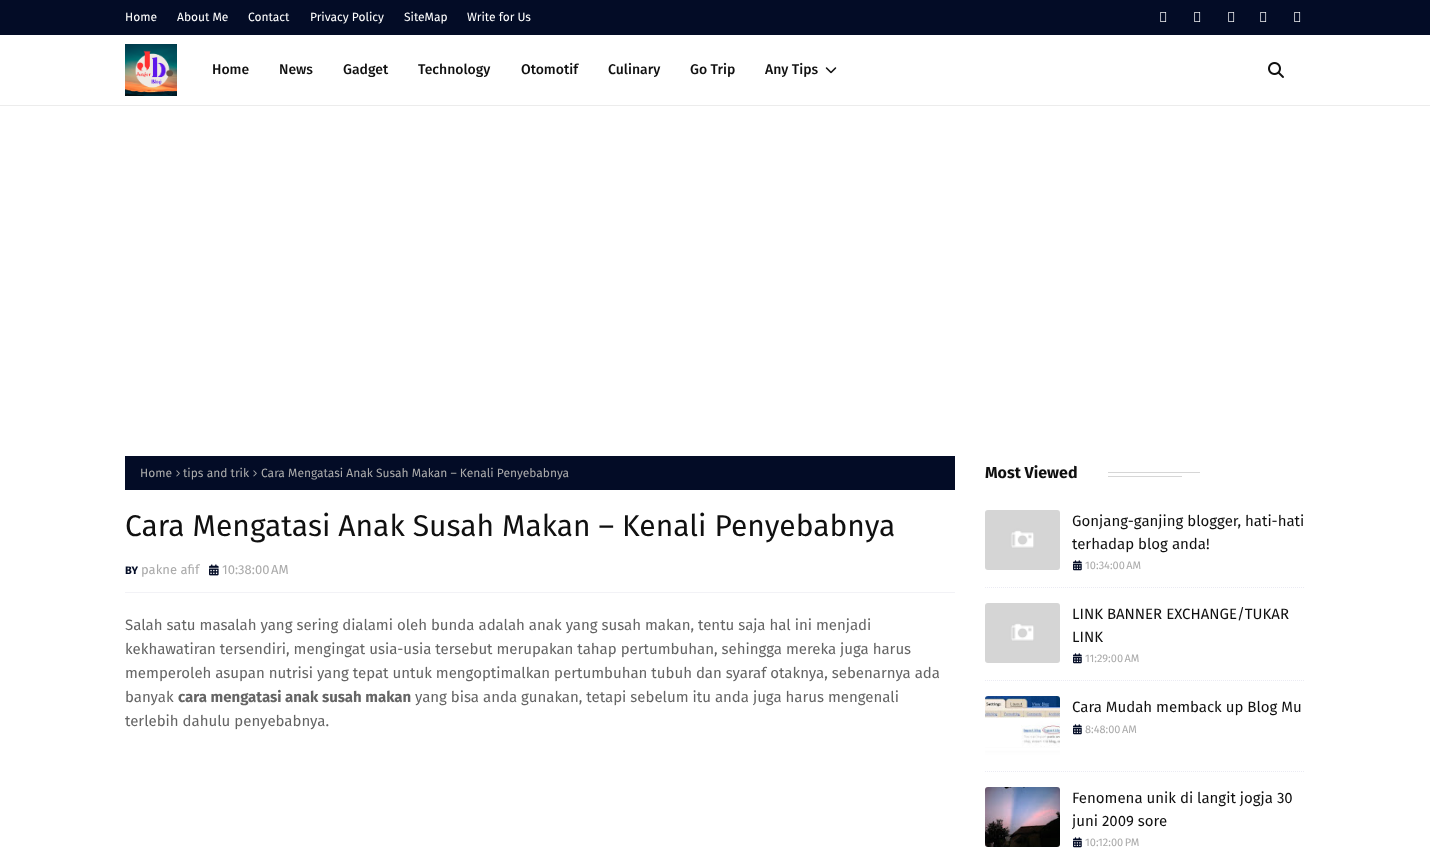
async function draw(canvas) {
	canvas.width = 1430;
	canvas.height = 858;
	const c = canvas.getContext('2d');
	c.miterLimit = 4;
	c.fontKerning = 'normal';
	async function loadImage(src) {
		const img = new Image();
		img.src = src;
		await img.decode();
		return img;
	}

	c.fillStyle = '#fff';
	c.fillRect(0, 0, 1430, 858);
	c.fillStyle = '#030c26';
	c.fillRect(0, 0, 1430, 35);
	c.font = '12px Fira Sans';
	c.fillStyle = '#fff';
	for (const [text, x, y] of [
		['Home', 125, 21],
		['About Me', 177, 21],
		['Contact', 248, 21],
		['Privacy Policy', 310, 21],
		['SiteMap', 404, 21],
		['Write for Us', 467, 21],
	]) {
		c.fillText(text, x, y);
	}
	c.drawImage(await loadImage('img1.png'), 1160, 12, 7, 10);
	c.drawImage(await loadImage('img1.png'), 1194, 12, 7, 10);
	c.drawImage(await loadImage('img1.png'), 1228, 12, 7, 10);
	c.drawImage(await loadImage('img1.png'), 1260, 12, 7, 10);
	c.drawImage(await loadImage('img1.png'), 1294, 12, 7, 10);
	c.fillStyle = '#ececec';
	c.fillRect(0, 105, 1430, 1);
	c.drawImage(await loadImage('img2.png'), 125, 44, 52, 52);
	c.font = '500 14px Fira Sans';
	c.fillStyle = '#101010';
	for (const [text, x, y] of [
		['Home', 212, 74],
		['News', 279, 74],
		['Gadget', 343, 74],
		['Technology', 418, 74],
		['Otomotif', 521, 74],
		['Culinary', 608, 74],
		['Go Trip', 690, 74],
		['Any Tips', 765, 74],
	]) {
		c.fillText(text, x, y);
	}
	c.drawImage(await loadImage('img3.png'), 825, 67, 12, 7);
	c.drawImage(await loadImage('img4.png'), 1268, 62, 16, 16);
	c.fillStyle = '#030c26';
	c.fillRect(125, 456, 830, 34);
	c.font = '12px Fira Sans';
	c.fillStyle = '#aaa';
	c.fillText('Home', 140, 477);
	c.drawImage(await loadImage('img5.png'), 176, 470, 4, 7);
	c.fillText('tips and trik', 183, 477);
	c.drawImage(await loadImage('img5.png'), 253, 470, 4, 7);
	c.fillText('Cara Mengatasi Anak Susah Makan – Kenali Penyebabnya', 261, 477);
	c.font = '30px Fira Sans';
	c.fillStyle = '#101010';
	c.fillText('Cara Mengatasi Anak Susah Makan – Kenali Penyebabnya', 125, 536);
	c.font = 'bold 11px Fira Sans';
	c.fillStyle = '#030c26';
	c.fillText('BY', 125, 574);
	c.font = '13px Fira Sans';
	c.fillStyle = '#aaa';
	c.fillText('pakne afif', 141, 574);
	c.drawImage(await loadImage('img6.png'), 209, 564, 10, 12);
	c.fillText('10:38:00 AM', 222, 574);
	c.fillStyle = '#f2f2f6';
	c.fillRect(125, 592, 830, 1);
	c.font = '15px Fira Sans';
	c.fillStyle = '#656565';
	for (const [text, x, y] of [
		['Salah satu masalah yang sering dialami oleh bunda adalah anak yang susah makan, tentu saja hal ini menjadi', 125, 630],
		['kekhawatiran tersendiri, mengingat usia-usia tersebut merupakan tahap pertumbuhan, sehingga mereka juga harus', 125, 654],
		['memperoleh asupan nutrisi yang tepat untuk mengoptimalkan pertumbuhan tubuh dan syaraf otaknya, sebenarnya ada', 125, 678],
		['banyak', 125, 702],
	]) {
		c.fillText(text, x, y);
	}
	c.font = 'bold 15px Fira Sans';
	c.fillText('cara mengatasi anak susah makan', 178, 702);
	c.font = '15px Fira Sans';
	c.fillText('yang bisa anda gunakan, tetapi sebelum itu anda juga harus mengenali', 415, 702);
	c.fillText('terlebih dahulu penyebabnya.', 125, 726);
	c.font = 'bold 16px Fira Sans';
	c.fillStyle = '#101010';
	c.fillText('Most Viewed', 985, 478);
	c.fillStyle = '#d6d6d6';
	c.fillRect(1108, 472, 92, 1);
	c.fillRect(1108, 476, 74, 1);
	c.drawImage(await loadImage('img7.png'), 985, 510, 75, 60);
	c.font = '15px Fira Sans';
	c.fillStyle = '#101010';
	c.fillText('Gonjang-ganjing blogger, hati-hati', 1072, 526);
	c.fillText('terhadap blog anda!', 1072, 549);
	c.drawImage(await loadImage('img8.png'), 1073, 560, 9, 11);
	c.font = '11px Fira Sans';
	c.fillStyle = '#aaa';
	c.fillText('10:34:00 AM', 1085, 569);
	c.beginPath();
	c.moveTo(985, 587.5);
	c.lineTo(1305, 587.5);
	c.strokeStyle = '#ebebf3';
	c.setLineDash([1, 1]);
	c.stroke();
	c.drawImage(await loadImage('img7.png'), 985, 603, 75, 60);
	c.font = '15px Fira Sans';
	c.fillStyle = '#101010';
	c.fillText('LINK BANNER EXCHANGE/TUKAR', 1072, 619);
	c.fillText('LINK', 1072, 642);
	c.drawImage(await loadImage('img8.png'), 1073, 653, 9, 11);
	c.font = '11px Fira Sans';
	c.fillStyle = '#aaa';
	c.fillText('11:29:00 AM', 1085, 662);
	c.beginPath();
	c.moveTo(985, 680.5);
	c.lineTo(1305, 680.5);
	c.stroke();
	c.drawImage(await loadImage('img9.png'), 985, 696, 75, 60);
	c.font = '15px Fira Sans';
	c.fillStyle = '#101010';
	c.fillText('Cara Mudah memback up Blog Mu', 1072, 712);
	c.drawImage(await loadImage('img8.png'), 1073, 724, 9, 11);
	c.font = '11px Fira Sans';
	c.fillStyle = '#aaa';
	c.fillText('8:48:00 AM', 1085, 733);
	c.beginPath();
	c.moveTo(985, 771.5);
	c.lineTo(1305, 771.5);
	c.stroke();
	c.drawImage(await loadImage('img10.png'), 985, 787, 75, 60);
	c.font = '15px Fira Sans';
	c.fillStyle = '#101010';
	c.fillText('Fenomena unik di langit jogja 30', 1072, 803);
	c.fillText('juni 2009 sore', 1072, 826);
	c.drawImage(await loadImage('img8.png'), 1073, 837, 9, 11);
	c.font = '11px Fira Sans';
	c.fillStyle = '#aaa';
	c.fillText('10:12:00 PM', 1085, 846);
}

draw(document.querySelector('canvas'));
